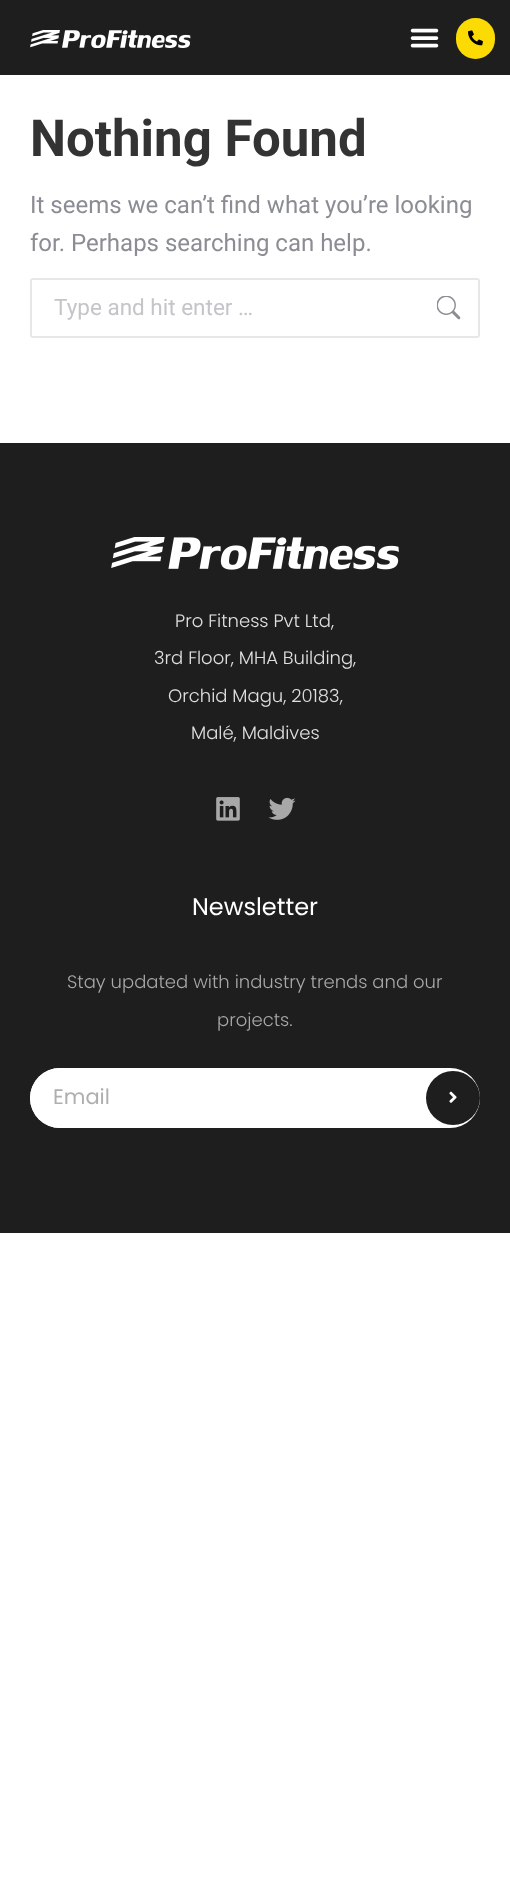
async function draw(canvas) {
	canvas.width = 510;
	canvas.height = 1889;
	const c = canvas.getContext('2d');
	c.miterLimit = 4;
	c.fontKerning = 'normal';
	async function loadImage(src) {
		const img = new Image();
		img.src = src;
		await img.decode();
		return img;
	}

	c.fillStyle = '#fff';
	c.fillRect(0, 0, 510, 1889);
	c.fillStyle = '#1e1e1e';
	c.fillRect(0, 0, 510, 75);
	c.drawImage(await loadImage('img1.png'), 30, 30, 161, 18);
	c.drawImage(await loadImage('img2.png'), 410, 28, 29, 20);
	c.fillStyle = '#fcdb04';
	c.beginPath();
	c.roundRect(456, 18, 39, 41, 19.5);
	c.fill();
	c.drawImage(await loadImage('img3.png'), 468, 30, 15, 16);
	c.font = 'bold 51px Roboto';
	c.fillStyle = '#333';
	c.fillText('Nothing Found', 30, 156);
	c.font = '24px Roboto';
	c.fillStyle = '#8b8d94';
	c.fillText('It seems we can’t find what you’re looking', 30, 213);
	c.fillText('for. Perhaps searching can help.', 30, 251);
	c.beginPath();
	c.roundRect(31, 279, 448, 58, 2);
	c.strokeStyle = '#e7e7e7';
	c.lineWidth = 2;
	c.stroke();
	c.font = '22.5px Roboto';
	c.fillStyle = '#c4c5c9';
	c.fillText('Type and hit enter …', 54, 315);
	c.drawImage(await loadImage('img4.png'), 437, 296, 24, 24);
	c.fillStyle = '#1e1e1e';
	c.fillRect(0, 443, 510, 790);
	c.drawImage(await loadImage('img5.png'), 111, 537, 288, 33);
	c.font = '300 18px Poppins';
	c.fillStyle = '#e0e0e0';
	for (const [text, x, y] of [
		['Pro Fitness Pvt Ltd,', 175, 627],
		['3rd Floor, MHA Building,', 154, 664],
		['Orchid Magu, 20183,', 168, 702],
		['Malé, Maldives', 191, 739],
	]) {
		c.fillText(text, x, y);
	}
	c.drawImage(await loadImage('img6.png'), 216, 797, 24, 24);
	c.drawImage(await loadImage('img7.png'), 268, 797, 28, 23);
	c.font = '24px Poppins';
	c.fillStyle = '#fff';
	c.fillText('Newsletter', 192, 915);
	c.font = '300 18px Poppins';
	c.fillStyle = '#a8a8a8';
	c.fillText('Stay updated with industry trends and our', 67, 988);
	c.fillText('projects.', 217, 1026);
	c.fillStyle = '#fff';
	c.beginPath();
	c.roundRect(30, 1068, 450, 60, 30);
	c.fill();
	c.beginPath();
	c.roundRect(30, 1068, 315, 60, [30, 0, 0, 30]);
	c.fill();
	c.font = '21px Poppins';
	c.fillStyle = '#afafaf';
	c.fillText('Email', 53, 1104);
	c.fillStyle = '#1e1e1e';
	c.beginPath();
	c.arc(453, 1098, 27, 0, 2 * Math.PI);
	c.fill();
	c.drawImage(await loadImage('img8.png'), 449, 1091, 8, 12);
}

draw(document.querySelector('canvas'));
